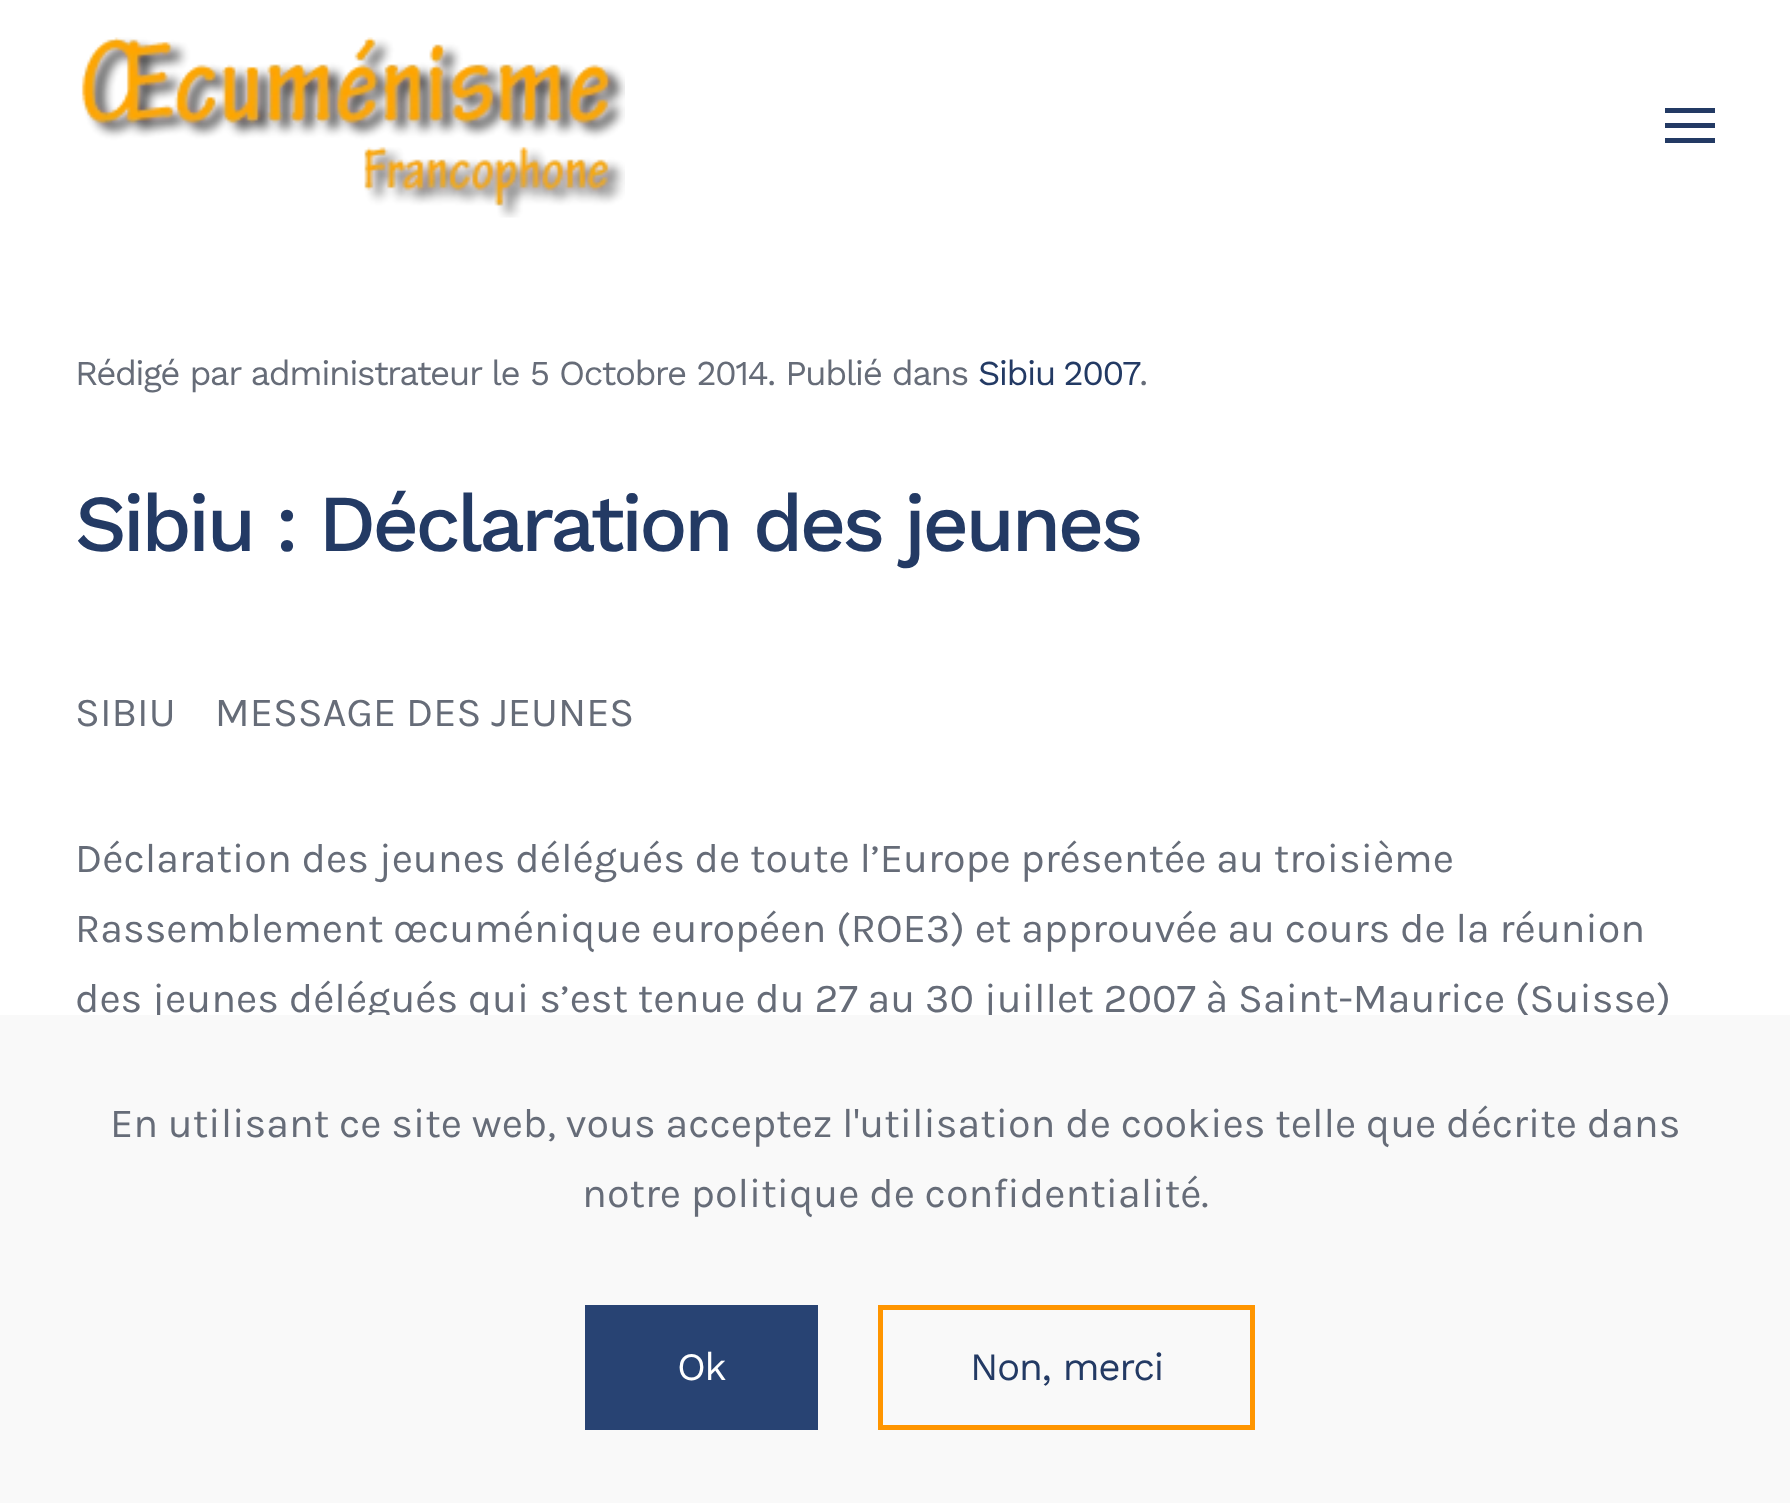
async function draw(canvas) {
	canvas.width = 1790;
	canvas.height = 1503;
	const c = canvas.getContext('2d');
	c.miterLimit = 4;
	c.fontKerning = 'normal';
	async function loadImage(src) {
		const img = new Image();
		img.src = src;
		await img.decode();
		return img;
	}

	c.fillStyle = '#fff';
	c.fillRect(0, 0, 1790, 1503);
	c.drawImage(await loadImage('img1.png'), 81, 37, 544, 181);
	for (const [x, y, w, h, color] of [
		[1665, 108, 50, 5, '#233a64'],
		[1665, 123, 50, 5, '#233a64'],
		[1665, 138, 50, 5, '#233a64'],
	]) {
		c.fillStyle = color;
		c.fillRect(x, y, w, h);
	}
	c.letterSpacing = '-1.5px';
	c.font = '35px Work Sans';
	c.fillStyle = '#666c78';
	c.fillText('Rédigé par administrateur le 5 Octobre 2014', 75, 385);
	c.fillText('. Publié dans', 767, 385);
	c.wordSpacing = '-2px';
	c.fillStyle = '#233a64';
	c.fillText('Sibiu 2007', 978, 385);
	c.wordSpacing = '0px';
	c.fillStyle = '#666c78';
	c.fillText('.', 1139, 385);
	c.letterSpacing = '-3.75px';
	c.font = '500 80.75px Work Sans';
	c.fillStyle = '#233a64';
	c.fillText('Sibiu : Déclaration des jeunes', 75, 551);
	c.letterSpacing = '0px';
	c.font = '41.25px Karla';
	c.fillStyle = '#666c78';
	for (const [text, x, y] of [
		['SIBIU    MESSAGE DES JEUNES', 75, 726],
		['Déclaration des jeunes délégués de toute l’Europe présentée au troisième', 75, 872],
		['Rassemblement œcuménique européen (ROE3) et approuvée au cours de la réunion', 75, 942],
		['des jeunes délégués qui s’est tenue du 27 au 30 juillet 2007 à Saint-Maurice (Suisse)', 75, 1012],
	]) {
		c.fillText(text, x, y);
	}
	c.fillStyle = '#f9f9f9';
	c.fillRect(0, 1015, 1790, 488);
	c.fillStyle = '#666c78';
	c.fillText('En utilisant ce site web, vous acceptez l\'utilisation de cookies telle que décrite dans', 110, 1137);
	c.fillText('notre politique de confidentialité.', 582, 1207);
	c.fillStyle = '#284373';
	c.fillRect(585, 1305, 233, 125);
	c.letterSpacing = '-1.25px';
	c.font = '38.75px Work Sans';
	c.fillStyle = '#fff';
	c.fillText('Ok', 677, 1380);
	c.strokeStyle = '#ff9500';
	c.lineWidth = 5;
	c.strokeRect(880.5, 1307.5, 372, 120);
	c.fillStyle = '#233a64';
	c.fillText('Non, merci', 970, 1380);
}

draw(document.querySelector('canvas'));
